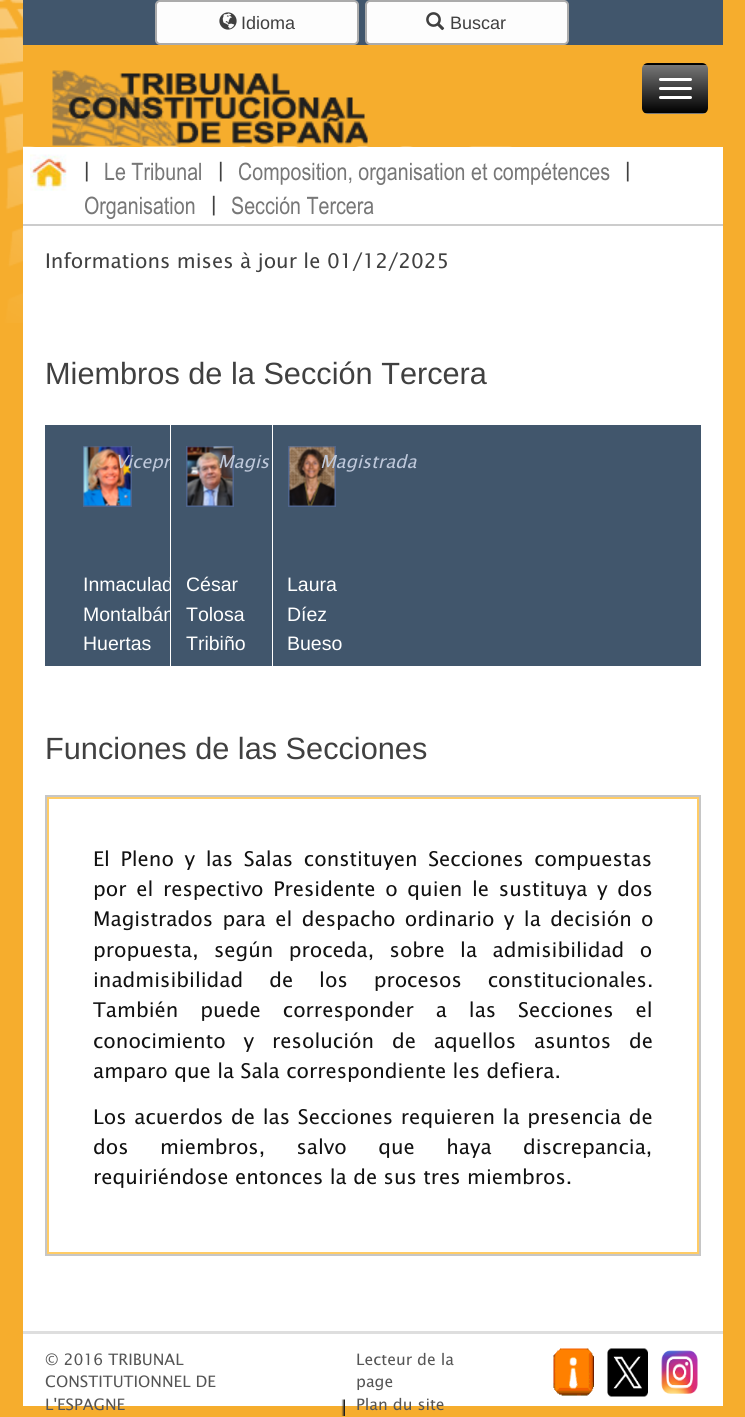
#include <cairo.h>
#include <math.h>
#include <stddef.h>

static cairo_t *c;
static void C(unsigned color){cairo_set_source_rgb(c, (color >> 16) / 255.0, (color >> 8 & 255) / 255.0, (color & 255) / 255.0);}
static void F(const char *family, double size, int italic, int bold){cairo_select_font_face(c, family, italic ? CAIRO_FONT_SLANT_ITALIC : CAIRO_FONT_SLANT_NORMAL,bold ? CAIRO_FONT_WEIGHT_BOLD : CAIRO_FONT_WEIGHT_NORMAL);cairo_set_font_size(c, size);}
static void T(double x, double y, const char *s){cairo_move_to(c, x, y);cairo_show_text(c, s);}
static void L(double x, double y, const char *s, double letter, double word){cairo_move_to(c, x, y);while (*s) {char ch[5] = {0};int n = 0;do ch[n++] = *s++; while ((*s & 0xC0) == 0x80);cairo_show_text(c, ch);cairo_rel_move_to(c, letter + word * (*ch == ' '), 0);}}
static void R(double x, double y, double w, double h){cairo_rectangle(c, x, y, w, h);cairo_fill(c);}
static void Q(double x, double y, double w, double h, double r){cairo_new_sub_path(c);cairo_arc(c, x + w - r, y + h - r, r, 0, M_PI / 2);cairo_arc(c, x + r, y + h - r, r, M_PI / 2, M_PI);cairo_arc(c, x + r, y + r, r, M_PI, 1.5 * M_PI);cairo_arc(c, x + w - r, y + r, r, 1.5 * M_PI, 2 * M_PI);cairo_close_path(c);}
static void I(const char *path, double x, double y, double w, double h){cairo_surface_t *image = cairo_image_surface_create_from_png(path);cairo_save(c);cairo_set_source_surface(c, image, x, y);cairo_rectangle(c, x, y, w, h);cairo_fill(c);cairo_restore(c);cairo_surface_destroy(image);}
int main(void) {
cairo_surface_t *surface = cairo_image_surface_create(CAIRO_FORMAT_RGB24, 745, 1417);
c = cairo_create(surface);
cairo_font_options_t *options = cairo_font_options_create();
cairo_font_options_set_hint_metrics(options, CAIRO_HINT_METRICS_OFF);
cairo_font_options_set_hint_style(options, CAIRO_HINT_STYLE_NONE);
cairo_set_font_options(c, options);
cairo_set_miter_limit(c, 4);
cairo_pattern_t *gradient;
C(0xf6ad2d);
cairo_paint(c);
I("1.png",0,0,512,323);
C(0xf6ad2d);
R(23,45,489,101);
C(0x41566c);
R(23,0,700,45);
C(0xfdfdfd);
Q(156,1,202,43,4);
cairo_fill_preserve(c);
C(0xababab);
cairo_stroke(c);
I("2.png",219,12,18,18);
F("Liberation Sans",18,0,0);
C(0x404040);
T(241,29,"Idioma");
C(0xfdfdfd);
Q(366,1,202,43,4);
cairo_fill_preserve(c);
C(0xababab);
cairo_stroke(c);
I("3.png",426,12,19,19);
C(0x404040);
T(450,29,"Buscar");
I("4.png",52,70,316,76);
cairo_save(c);
Q(642,63,66,51,6);
cairo_clip(c);
gradient = cairo_pattern_create_linear(675,16,675,65);
cairo_pattern_add_color_stop_rgba(gradient,0,0.467,0.467,0.467,1);
cairo_pattern_add_color_stop_rgba(gradient,1,0,0,0,1);
cairo_set_source(c,gradient);
cairo_pattern_destroy(gradient);
R(642,63,66,2);
gradient = cairo_pattern_create_linear(675,65,675,113);
cairo_pattern_add_color_stop_rgba(gradient,0,0.467,0.467,0.467,1);
cairo_pattern_add_color_stop_rgba(gradient,1,0,0,0,1);
cairo_set_source(c,gradient);
cairo_pattern_destroy(gradient);
R(642,65,66,48);
gradient = cairo_pattern_create_linear(675,113,675,161);
cairo_pattern_add_color_stop_rgba(gradient,0,0.467,0.467,0.467,1);
cairo_pattern_add_color_stop_rgba(gradient,1,0,0,0,1);
cairo_set_source(c,gradient);
cairo_pattern_destroy(gradient);
R(642,113,66,1);
cairo_restore(c);
C(0xffffff);
Q(659,78,33,3,1.5);
cairo_fill(c);
Q(659,87,33,3,1.5);
cairo_fill(c);
Q(659,96,33,3,1.5);
cairo_fill(c);
R(23,147,700,77);
I("5.png",30,154,37,37);
F("Liberation Sans",21,0,0);
C(0x404040);
T(84,177,"|");
F("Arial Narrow",24,0,0);
C(0x777777);
T(104,180,"Le Tribunal");
F("Liberation Sans",21,0,0);
C(0x404040);
T(218,177,"|");
F("Arial Narrow",24,0,0);
C(0x777777);
T(238,180,"Composition, organisation et compétences");
F("Liberation Sans",21,0,0);
C(0x404040);
T(625,177,"|");
F("Arial Narrow",24,0,0);
C(0x777777);
T(84,214,"Organisation");
F("Liberation Sans",21,0,0);
C(0x404040);
T(211,211,"|");
F("Arial Narrow",24,0,0);
C(0x777777);
T(231,214,"Sección Tercera");
C(0xffffff);
R(23,226,700,1180);
C(0xcccccc);
R(23,224,700,2);
F("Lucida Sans",20.25,0,0);
C(0x404040);
T(45,268,"Informations mises à jour le 01/12/2025");
F("Liberation Sans",30.7,0,0);
T(45,384,"Miembros de la Sección Tercera");
C(0x41566c);
R(45,425,656,241);
cairo_rectangle(c,84,447,47,59);
C(0x4f658e);
cairo_stroke(c);
I("6.png",83,446,48,60);
F("Lucida Sans",18,1,0);
C(0xbfc9db);
T(115,468,"Vicepr");
F("Liberation Sans",19.5,0,0);
C(0xffffff);
T(83,591,"Inmaculad");
T(83,621,"Montalbán");
T(83,650,"Huertas");
R(170,425,1,241);
C(0x41566c);
R(171,458,2,163);
cairo_rectangle(c,187,447,46,59);
C(0x4f658e);
cairo_stroke(c);
I("7.png",187,446,46,60);
F("Lucida Sans",18,1,0);
C(0xbfc9db);
T(218,468,"Magis");
F("Liberation Sans",19.5,0,0);
C(0xffffff);
T(186,591,"César");
T(186,621,"Tolosa");
T(186,650,"Tribiño");
R(272,425,1,241);
cairo_rectangle(c,289,447,46,59);
C(0x4f658e);
cairo_stroke(c);
I("8.png",289,446,46,60);
F("Lucida Sans",18,1,0);
C(0xbfc9db);
T(320,468,"Magistrada");
F("Liberation Sans",19.5,0,0);
C(0xffffff);
T(287,591,"Laura");
T(287,621,"Díez");
T(287,650,"Bueso");
F("Liberation Sans",30.7,0,0);
C(0x404040);
T(45,759,"Funciones de las Secciones");
cairo_rectangle(c,46,796,654,459);
C(0xc6c6c6);
cairo_stroke(c);
cairo_rectangle(c,48,798,650,455);
C(0xffcc66);
cairo_stroke(c);
F("Lucida Sans",20.25,0,0);
C(0x111111);
L(93,866,"El Pleno y las Salas constituyen Secciones compuestas",0,4.25);
L(93,896,"por el respectivo Presidente o quien le sustituya y dos",0,3.25);
L(93,926,"Magistrados para el despacho ordinario y la decisión o",0,3);
L(93,957,"propuesta, según proceda, sobre la admisibilidad o",0,9);
L(93,987,"inadmisibilidad de los procesos constitucionales.",0,19.5);
L(93,1017,"También puede corresponder a las Secciones el",0,15.5);
L(93,1048,"conocimiento y resolución de aquellos asuntos de",0,11.5);
T(93,1078,"amparo que la Sala correspondiente les defiera.");
L(93,1124,"Los acuerdos de las Secciones requieren la presencia de",0,1.25);
L(93,1154,"dos miembros, salvo que haya discrepancia,",0,25);
T(93,1184,"requiriéndose entonces la de sus tres miembros.");
C(0xdedede);
R(23,1331,700,3);
F("Lucida Sans",15.75,0,0);
C(0x555555);
T(45,1365,"© 2016 TRIBUNAL");
T(45,1387,"CONSTITUTIONNEL DE");
T(45,1410,"L'ESPAGNE");
T(356,1365,"Lecteur de la");
T(356,1387,"page");
I("9.png",341,1399,4,17);
T(356,1410,"Plan du site");
I("10.png",553,1348,41,48);
I("11.png",607,1348,41,49);
I("12.png",661,1350,37,44);
cairo_surface_write_to_png(surface, "o.png");
cairo_font_options_destroy(options);
cairo_destroy(c);
cairo_surface_destroy(surface);
return 0;
}
